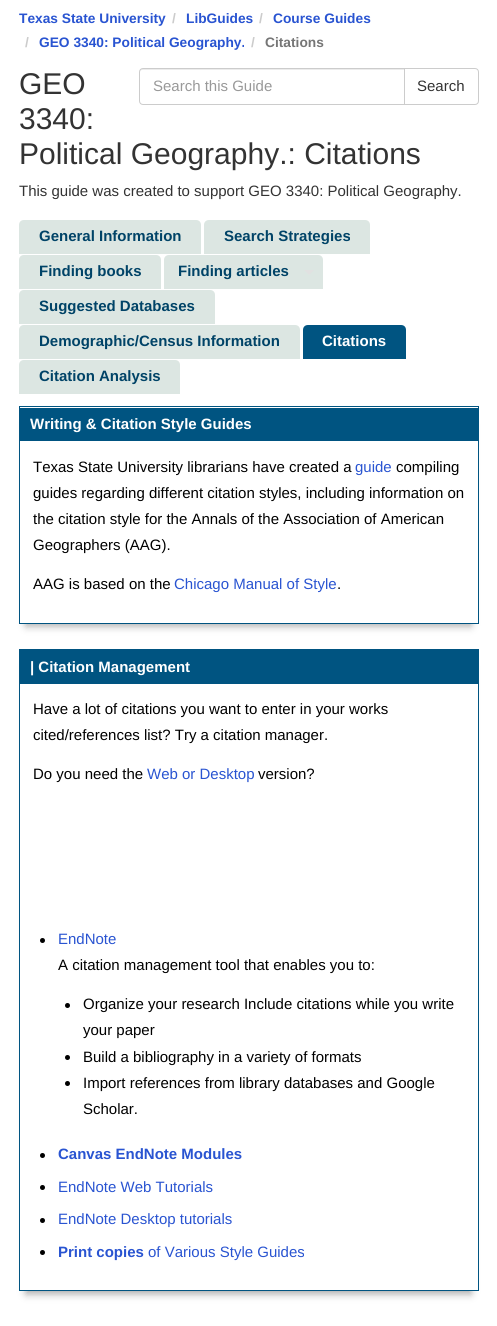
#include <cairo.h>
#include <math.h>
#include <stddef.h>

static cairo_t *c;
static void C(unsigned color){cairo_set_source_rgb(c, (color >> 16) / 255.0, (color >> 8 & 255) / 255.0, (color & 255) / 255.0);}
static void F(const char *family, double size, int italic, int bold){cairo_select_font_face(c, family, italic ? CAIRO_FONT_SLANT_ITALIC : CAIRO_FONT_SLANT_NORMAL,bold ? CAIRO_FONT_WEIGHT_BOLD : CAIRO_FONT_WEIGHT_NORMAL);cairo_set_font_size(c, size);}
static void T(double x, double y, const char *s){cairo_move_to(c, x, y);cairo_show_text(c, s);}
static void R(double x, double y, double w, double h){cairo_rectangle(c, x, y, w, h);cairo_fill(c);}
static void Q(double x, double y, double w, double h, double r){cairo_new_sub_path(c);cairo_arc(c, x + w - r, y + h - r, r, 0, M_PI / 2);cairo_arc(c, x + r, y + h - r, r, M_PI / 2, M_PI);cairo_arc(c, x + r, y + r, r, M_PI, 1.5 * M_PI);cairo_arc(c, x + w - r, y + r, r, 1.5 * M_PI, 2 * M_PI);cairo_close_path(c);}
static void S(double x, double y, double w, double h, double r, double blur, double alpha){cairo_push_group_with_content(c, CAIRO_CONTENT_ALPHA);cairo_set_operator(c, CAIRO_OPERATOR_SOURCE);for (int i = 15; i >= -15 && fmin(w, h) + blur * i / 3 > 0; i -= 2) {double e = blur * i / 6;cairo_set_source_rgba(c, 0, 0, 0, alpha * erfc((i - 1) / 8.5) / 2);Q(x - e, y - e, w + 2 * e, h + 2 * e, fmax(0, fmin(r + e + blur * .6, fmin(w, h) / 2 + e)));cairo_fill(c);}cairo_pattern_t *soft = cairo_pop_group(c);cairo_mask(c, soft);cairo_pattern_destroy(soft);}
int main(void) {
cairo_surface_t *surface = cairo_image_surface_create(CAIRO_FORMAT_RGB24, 497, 1326);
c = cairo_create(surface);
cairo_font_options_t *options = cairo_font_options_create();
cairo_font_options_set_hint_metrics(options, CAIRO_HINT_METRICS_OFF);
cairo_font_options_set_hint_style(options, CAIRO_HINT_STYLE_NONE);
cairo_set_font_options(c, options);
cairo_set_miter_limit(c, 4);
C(0xffffff);
cairo_paint(c);
F("Liberation Sans",13.75,0,1);
C(0x2954d1);
T(19,23,"Texas State University");
C(0xcccccc);
T(172,23,"/");
C(0x2954d1);
T(186,23,"LibGuides");
C(0xcccccc);
T(259,23,"/");
C(0x2954d1);
T(273,23,"Course Guides");
C(0xcccccc);
T(25,47,"/");
C(0x2954d1);
T(39,47,"GEO 3340: Political Geography.");
C(0xcccccc);
T(251,47,"/");
C(0x767676);
T(265,47,"Citations");
F("Liberation Sans",30,0,0);
C(0x333333);
T(19,94,"GEO");
T(19,129,"3340:");
T(19,164,"Political Geography.: Citations");
F("Liberation Sans",15,0,0);
T(19,196,"This guide was created to support GEO 3340: Political Geography.");
C(0xececec);
cairo_new_path(c);
cairo_move_to(c,142,70);
cairo_line_to(c,404,70);
cairo_line_to(c,404,69);
cairo_line_to(c,142,69);
cairo_curve_to(c,141,69,140,70,140,72);
cairo_curve_to(c,140,71,141,70,142,70);
cairo_close_path(c);
cairo_fill(c);
cairo_new_path(c);
cairo_move_to(c,143,68.5);
cairo_line_to(c,404.5,68.5);
cairo_line_to(c,404.5,104.5);
cairo_line_to(c,143,104.5);
cairo_curve_to(c,141,104.5,139.5,103,139.5,101);
cairo_line_to(c,139.5,72);
cairo_curve_to(c,139.5,70,141,68.5,143,68.5);
cairo_close_path(c);
C(0xcccccc);
cairo_set_line_width(c,1);
cairo_stroke(c);
C(0x999999);
T(153,91,"Search this Guide");
C(0xffffff);
cairo_new_path(c);
cairo_move_to(c,404.5,68.5);
cairo_line_to(c,475,68.5);
cairo_curve_to(c,477,68.5,478.5,70,478.5,72);
cairo_line_to(c,478.5,101);
cairo_curve_to(c,478.5,103,477,104.5,475,104.5);
cairo_line_to(c,404.5,104.5);
cairo_close_path(c);
cairo_fill_preserve(c);
C(0xcccccc);
cairo_stroke(c);
C(0x333333);
T(417,91,"Search");
C(0xdce6e2);
cairo_new_path(c);
cairo_move_to(c,24,220);
cairo_line_to(c,196,220);
cairo_curve_to(c,199,220,201,222,201,225);
cairo_line_to(c,201,254);
cairo_line_to(c,19,254);
cairo_line_to(c,19,225);
cairo_curve_to(c,19,222,21,220,24,220);
cairo_close_path(c);
cairo_fill(c);
F("Liberation Sans",15,0,1);
C(0x004367);
T(39,241,"General Information");
C(0xdce6e2);
cairo_new_path(c);
cairo_move_to(c,209,220);
cairo_line_to(c,365,220);
cairo_curve_to(c,368,220,370,222,370,225);
cairo_line_to(c,370,254);
cairo_line_to(c,204,254);
cairo_line_to(c,204,225);
cairo_curve_to(c,204,222,206,220,209,220);
cairo_close_path(c);
cairo_fill(c);
C(0x004367);
T(224,241,"Search Strategies");
C(0xdce6e2);
cairo_new_path(c);
cairo_move_to(c,24,255);
cairo_line_to(c,156,255);
cairo_curve_to(c,159,255,161,257,161,260);
cairo_line_to(c,161,289);
cairo_line_to(c,19,289);
cairo_line_to(c,19,260);
cairo_curve_to(c,19,257,21,255,24,255);
cairo_close_path(c);
cairo_fill(c);
C(0x004367);
T(39,276,"Finding books");
C(0xdce6e2);
cairo_new_path(c);
cairo_move_to(c,169,255);
cairo_line_to(c,296,255);
cairo_line_to(c,296,289);
cairo_line_to(c,164,289);
cairo_line_to(c,164,260);
cairo_curve_to(c,164,257,166,255,169,255);
cairo_close_path(c);
cairo_fill(c);
C(0x004367);
T(178,276,"Finding articles");
C(0xdce6e2);
cairo_new_path(c);
cairo_move_to(c,296,255);
cairo_line_to(c,318,255);
cairo_curve_to(c,321,255,323,257,323,260);
cairo_line_to(c,323,289);
cairo_line_to(c,296,289);
cairo_close_path(c);
cairo_fill(c);
C(0xe1e1e1);
cairo_new_path(c);
cairo_move_to(c,304,270);
cairo_line_to(c,314,270);
cairo_line_to(c,309,275);
cairo_close_path(c);
cairo_fill(c);
C(0xdce6e2);
cairo_new_path(c);
cairo_move_to(c,24,290);
cairo_line_to(c,210,290);
cairo_curve_to(c,213,290,215,292,215,295);
cairo_line_to(c,215,324);
cairo_line_to(c,19,324);
cairo_line_to(c,19,295);
cairo_curve_to(c,19,292,21,290,24,290);
cairo_close_path(c);
cairo_fill(c);
C(0x004367);
T(39,311,"Suggested Databases");
C(0xdce6e2);
cairo_new_path(c);
cairo_move_to(c,24,325);
cairo_line_to(c,295,325);
cairo_curve_to(c,298,325,300,327,300,330);
cairo_line_to(c,300,359);
cairo_line_to(c,19,359);
cairo_line_to(c,19,330);
cairo_curve_to(c,19,327,21,325,24,325);
cairo_close_path(c);
cairo_fill(c);
C(0x004367);
T(39,346,"Demographic/Census Information");
C(0x005481);
cairo_new_path(c);
cairo_move_to(c,308,325);
cairo_line_to(c,401,325);
cairo_curve_to(c,404,325,406,327,406,330);
cairo_line_to(c,406,359);
cairo_line_to(c,303,359);
cairo_line_to(c,303,330);
cairo_curve_to(c,303,327,305,325,308,325);
cairo_close_path(c);
cairo_fill(c);
C(0xffffff);
T(322,346,"Citations");
C(0xdce6e2);
cairo_new_path(c);
cairo_move_to(c,24,360);
cairo_line_to(c,175,360);
cairo_curve_to(c,178,360,180,362,180,365);
cairo_line_to(c,180,394);
cairo_line_to(c,19,394);
cairo_line_to(c,19,365);
cairo_curve_to(c,19,362,21,360,24,360);
cairo_close_path(c);
cairo_fill(c);
C(0x004367);
T(39,381,"Citation Analysis");
C(0xaaaaaa);
S(26,424,445,202,0,4,1);
C(0xffffff);
R(20,416,458,207);
cairo_rectangle(c,19.5,406.5,459,217);
C(0x005481);
cairo_stroke(c);
R(20,408,458,33);
C(0xffffff);
T(30,429,"Writing & Citation Style Guides");
F("Liberation Sans",15,0,0);
C(0x000000);
T(33,472,"Texas State University librarians have created a");
C(0x2954d1);
T(355,472,"guide");
C(0x000000);
T(396,472,"compiling");
T(33,498,"guides regarding different citation styles, including information on");
T(33,524,"the citation style for the Annals of the Association of American");
T(33,550,"Geographers (AAG).");
T(33,589,"AAG is based on the");
C(0x2954d1);
T(174,589,"Chicago Manual of Style");
C(0x000000);
T(337,589,".");
cairo_save(c);
cairo_set_fill_rule(c,CAIRO_FILL_RULE_EVEN_ODD);
cairo_new_path(c);
cairo_move_to(c,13,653);
cairo_line_to(c,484,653);
cairo_line_to(c,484,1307);
cairo_line_to(c,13,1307);
cairo_close_path(c);
cairo_move_to(c,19,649);
cairo_line_to(c,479,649);
cairo_line_to(c,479,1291);
cairo_line_to(c,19,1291);
cairo_close_path(c);
cairo_clip(c);
C(0xaaaaaa);
S(26,666,445,628,0,4,1);
cairo_restore(c);
cairo_rectangle(c,19.5,649.5,459,641);
C(0x005481);
cairo_stroke(c);
R(20,650,458,34);
F("Liberation Sans",15,0,1);
C(0xffffff);
T(30,672,"| Citation Management");
F("Liberation Sans",15,0,0);
C(0x000000);
T(33,714,"Have a lot of citations you want to enter in your works");
T(33,740,"cited/references list? Try a citation manager.");
T(33,779,"Do you need the");
C(0x2954d1);
T(147,779,"Web or Desktop");
C(0x000000);
T(258,779,"version?");
cairo_new_path(c);
cairo_arc(c,42.5,940.5,2.5,0,2 * M_PI);
cairo_fill(c);
C(0x2954d1);
T(58,944,"EndNote");
C(0x000000);
T(58,970,"A citation management tool that enables you to:");
cairo_new_path(c);
cairo_arc(c,67.5,1005.5,2.5,0,2 * M_PI);
cairo_fill(c);
T(83,1009,"Organize your research Include citations while you write");
T(83,1035,"your paper");
cairo_new_path(c);
cairo_arc(c,67.5,1057.5,2.5,0,2 * M_PI);
cairo_fill(c);
T(83,1062,"Build a bibliography in a variety of formats");
cairo_new_path(c);
cairo_arc(c,67.5,1083.5,2.5,0,2 * M_PI);
cairo_fill(c);
T(83,1088,"Import references from library databases and Google");
T(83,1114,"Scholar.");
cairo_new_path(c);
cairo_arc(c,42.5,1155.5,2.5,0,2 * M_PI);
cairo_fill(c);
F("Liberation Sans",15,0,1);
C(0x2954d1);
T(58,1159,"Canvas EndNote Modules");
C(0x000000);
cairo_new_path(c);
cairo_arc(c,42.5,1187.5,2.5,0,2 * M_PI);
cairo_fill(c);
F("Liberation Sans",15,0,0);
C(0x2954d1);
T(58,1192,"EndNote Web Tutorials");
C(0x000000);
cairo_new_path(c);
cairo_arc(c,42.5,1220.5,2.5,0,2 * M_PI);
cairo_fill(c);
C(0x2954d1);
T(58,1224,"EndNote Desktop tutorials");
C(0x000000);
cairo_new_path(c);
cairo_arc(c,42.5,1252.5,2.5,0,2 * M_PI);
cairo_fill(c);
F("Liberation Sans",15,0,1);
C(0x2954d1);
T(58,1257,"Print copies");
F("Liberation Sans",15,0,0);
T(148,1257,"of Various Style Guides");
cairo_surface_write_to_png(surface, "o.png");
cairo_font_options_destroy(options);
cairo_destroy(c);
cairo_surface_destroy(surface);
return 0;
}
